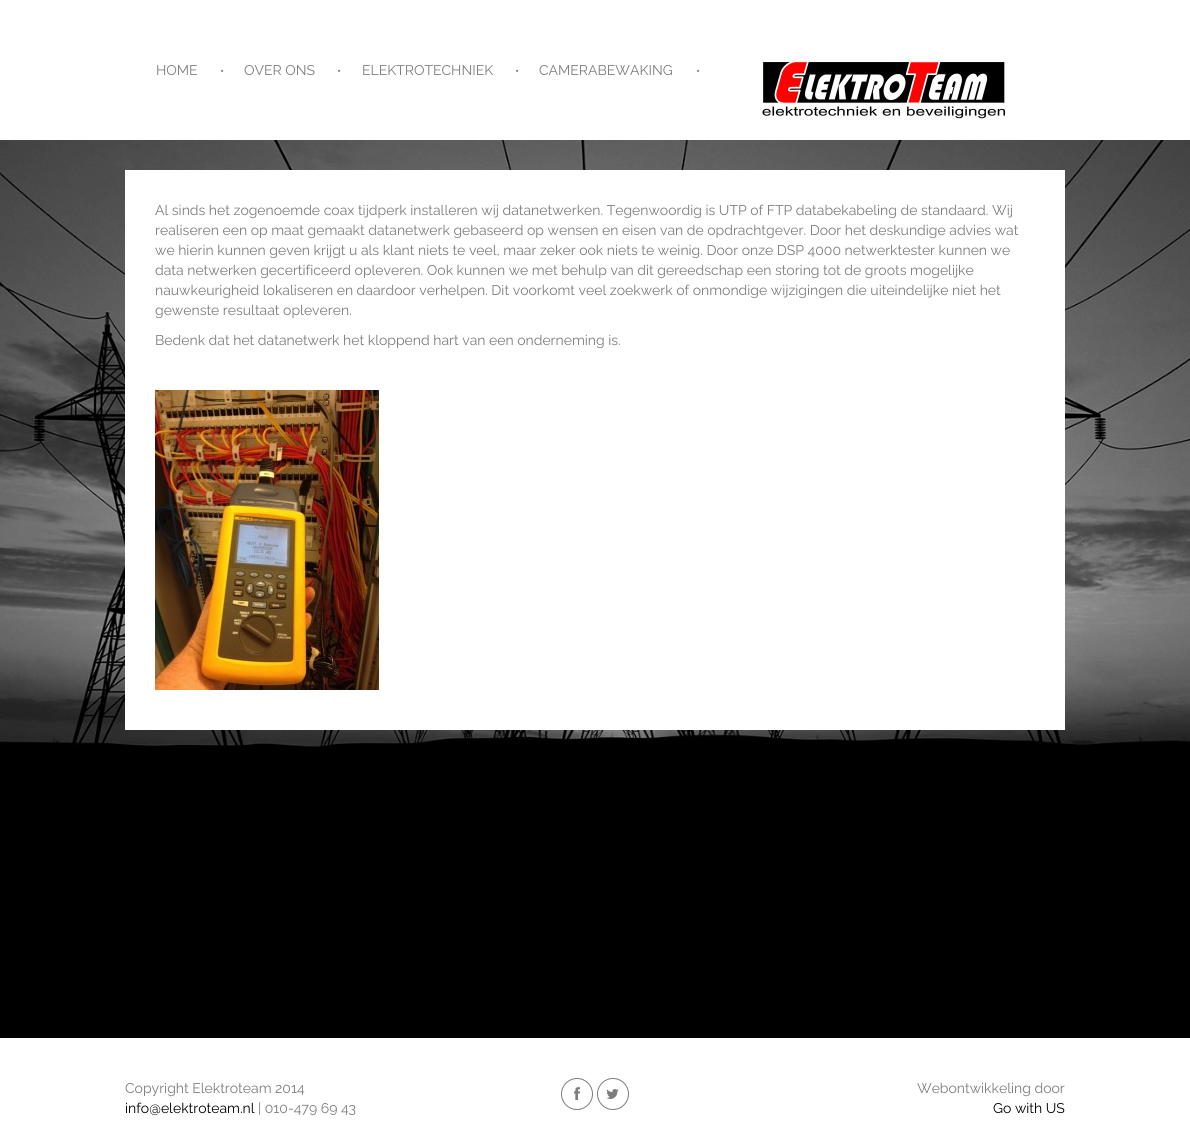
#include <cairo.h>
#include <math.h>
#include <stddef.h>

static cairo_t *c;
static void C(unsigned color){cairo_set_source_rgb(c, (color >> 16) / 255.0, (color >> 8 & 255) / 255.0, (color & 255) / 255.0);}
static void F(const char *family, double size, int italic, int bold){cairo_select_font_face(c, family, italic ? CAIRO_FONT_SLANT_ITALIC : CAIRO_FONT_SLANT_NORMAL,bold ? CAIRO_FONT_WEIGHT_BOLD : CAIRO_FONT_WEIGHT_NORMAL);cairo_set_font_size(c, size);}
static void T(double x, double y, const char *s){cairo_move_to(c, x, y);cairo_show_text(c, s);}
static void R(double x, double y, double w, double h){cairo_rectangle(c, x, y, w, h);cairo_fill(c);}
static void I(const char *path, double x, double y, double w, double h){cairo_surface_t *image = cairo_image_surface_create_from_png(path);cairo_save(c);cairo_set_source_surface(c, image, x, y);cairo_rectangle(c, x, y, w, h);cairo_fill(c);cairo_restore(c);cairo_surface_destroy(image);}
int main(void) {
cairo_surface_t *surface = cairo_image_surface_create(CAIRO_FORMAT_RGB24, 1190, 1138);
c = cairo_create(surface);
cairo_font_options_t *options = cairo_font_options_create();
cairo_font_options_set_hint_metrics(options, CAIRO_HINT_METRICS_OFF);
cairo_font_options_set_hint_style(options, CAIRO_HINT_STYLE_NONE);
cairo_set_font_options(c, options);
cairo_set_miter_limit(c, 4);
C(0x000000);
cairo_paint(c);
C(0xffffff);
R(0,0,1190,140);
F("Raleway Thin",14,0,0);
C(0x7d7d7d);
T(156,75,"HOME");
F("Raleway Thin",12,0,0);
T(220,75,"•");
F("Raleway Thin",14,0,0);
T(244,75,"OVER ONS");
F("Raleway Thin",12,0,0);
T(337,75,"•");
F("Raleway Thin",14,0,0);
T(362,75,"ELEKTROTECHNIEK");
F("Raleway Thin",12,0,0);
T(515,75,"•");
F("Raleway Thin",14,0,0);
T(539,75,"CAMERABEWAKING");
F("Raleway Thin",12,0,0);
T(696,75,"•");
I("1.png",762,60,244,60);
I("2.png",0,140,1190,607);
C(0xffffff);
R(125,170,940,560);
F("Raleway Thin",14,0,0);
C(0x7d7d7d);
T(155,215,"Al sinds het zogenoemde coax tijdperk installeren wij datanetwerken. Tegenwoordig is UTP of FTP databekabeling de standaard. Wij");
T(155,235,"realiseren een op maat gemaakt datanetwerk gebaseerd op wensen en eisen van de opdrachtgever. Door het deskundige advies wat");
T(155,255,"we hierin kunnen geven krijgt u als klant niets te veel, maar zeker ook niets te weinig. Door onze DSP 4000 netwerktester kunnen we");
T(155,275,"data netwerken gecertificeerd opleveren. Ook kunnen we met behulp van dit gereedschap een storing tot de groots mogelijke");
T(155,295,"nauwkeurigheid lokaliseren en daardoor verhelpen. Dit voorkomt veel zoekwerk of onmondige wijzigingen die uiteindelijke niet het");
T(155,315,"gewenste resultaat opleveren.");
T(155,345,"Bedenk dat het datanetwerk het kloppend hart van een onderneming is.");
I("3.png",155,390,224,300);
C(0xffffff);
R(0,1038,1190,100);
C(0x7d7d7d);
T(125,1093,"Copyright Elektroteam 2014");
C(0x000000);
T(125,1113,"info@elektroteam.nl");
C(0x7d7d7d);
T(258,1113,"| 010-479 69 43");
cairo_new_path(c);
cairo_arc(c,577,1094,15.5,0,2 * M_PI);
cairo_set_line_width(c,1);
cairo_stroke(c);
I("4.png",574,1087,6,13);
cairo_arc(c,613,1094,15.5,0,2 * M_PI);
cairo_stroke(c);
I("5.png",606,1089,13,10);
T(917,1093,"Webontwikkeling door");
C(0x000000);
T(993,1113,"Go with US");
cairo_surface_write_to_png(surface, "o.png");
cairo_font_options_destroy(options);
cairo_destroy(c);
cairo_surface_destroy(surface);
return 0;
}
